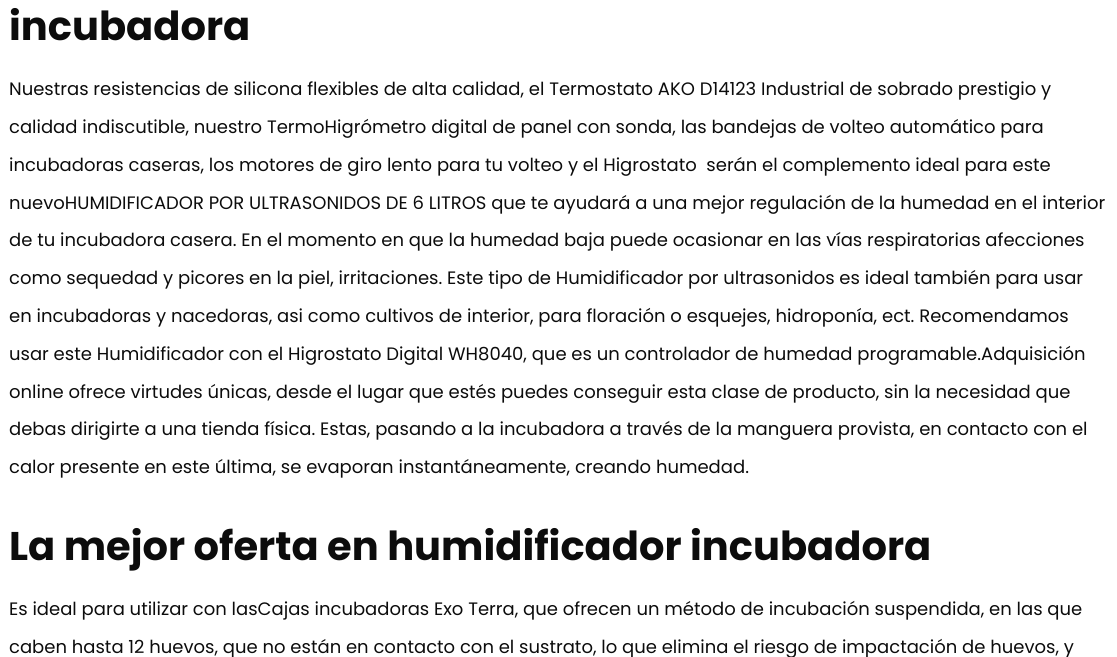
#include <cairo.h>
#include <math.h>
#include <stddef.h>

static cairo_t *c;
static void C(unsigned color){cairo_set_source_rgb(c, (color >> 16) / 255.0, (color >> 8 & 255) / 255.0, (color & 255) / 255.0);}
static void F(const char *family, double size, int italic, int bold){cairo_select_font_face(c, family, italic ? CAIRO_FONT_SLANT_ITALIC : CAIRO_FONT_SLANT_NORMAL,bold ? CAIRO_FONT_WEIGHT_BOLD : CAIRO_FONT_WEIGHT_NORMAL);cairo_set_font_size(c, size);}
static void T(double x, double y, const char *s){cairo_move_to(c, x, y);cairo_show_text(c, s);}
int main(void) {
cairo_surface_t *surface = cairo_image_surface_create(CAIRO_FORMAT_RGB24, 1117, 657);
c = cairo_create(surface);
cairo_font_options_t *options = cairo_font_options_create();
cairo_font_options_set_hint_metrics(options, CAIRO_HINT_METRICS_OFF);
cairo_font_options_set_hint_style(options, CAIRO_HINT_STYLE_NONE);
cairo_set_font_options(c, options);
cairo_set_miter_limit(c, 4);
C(0xffffff);
cairo_paint(c);
F("Poppins",40,0,1);
C(0x0c0c0c);
T(9,40,"incubadora");
F("Poppins",18,0,0);
T(9,95,"Nuestras resistencias de silicona flexibles de alta calidad, el Termostato AKO D14123 Industrial de sobrado prestigio y");
T(9,133,"calidad indiscutible, nuestro TermoHigrómetro digital de panel con sonda, las bandejas de volteo automático para");
T(9,171,"incubadoras caseras, los motores de giro lento para tu volteo y el Higrostato  serán el complemento ideal para este");
T(9,209,"nuevoHUMIDIFICADOR POR ULTRASONIDOS DE 6 LITROS que te ayudará a una mejor regulación de la humedad en el interior");
T(9,246,"de tu incubadora casera. En el momento en que la humedad baja puede ocasionar en las vías respiratorias afecciones");
T(9,284,"como sequedad y picores en la piel, irritaciones. Este tipo de Humidificador por ultrasonidos es ideal también para usar");
T(9,322,"en incubadoras y nacedoras, asi como cultivos de interior, para floración o esquejes, hidroponía, ect. Recomendamos");
T(9,360,"usar este Humidificador con el Higrostato Digital WH8040, que es un controlador de humedad programable.Adquisición");
T(9,398,"online ofrece virtudes únicas, desde el lugar que estés puedes conseguir esta clase de producto, sin la necesidad que");
T(9,435,"debas dirigirte a una tienda física. Estas, pasando a la incubadora a través de la manguera provista, en contacto con el");
T(9,473,"calor presente en este última, se evaporan instantáneamente, creando humedad.");
F("Poppins",40,0,1);
T(9,560,"La mejor oferta en humidificador incubadora");
F("Poppins",18,0,0);
T(9,615,"Es ideal para utilizar con lasCajas incubadoras Exo Terra, que ofrecen un método de incubación suspendida, en las que");
T(9,653,"caben hasta 12 huevos, que no están en contacto con el sustrato, lo que elimina el riesgo de impactación de huevos, y");
cairo_surface_write_to_png(surface, "o.png");
cairo_font_options_destroy(options);
cairo_destroy(c);
cairo_surface_destroy(surface);
return 0;
}
